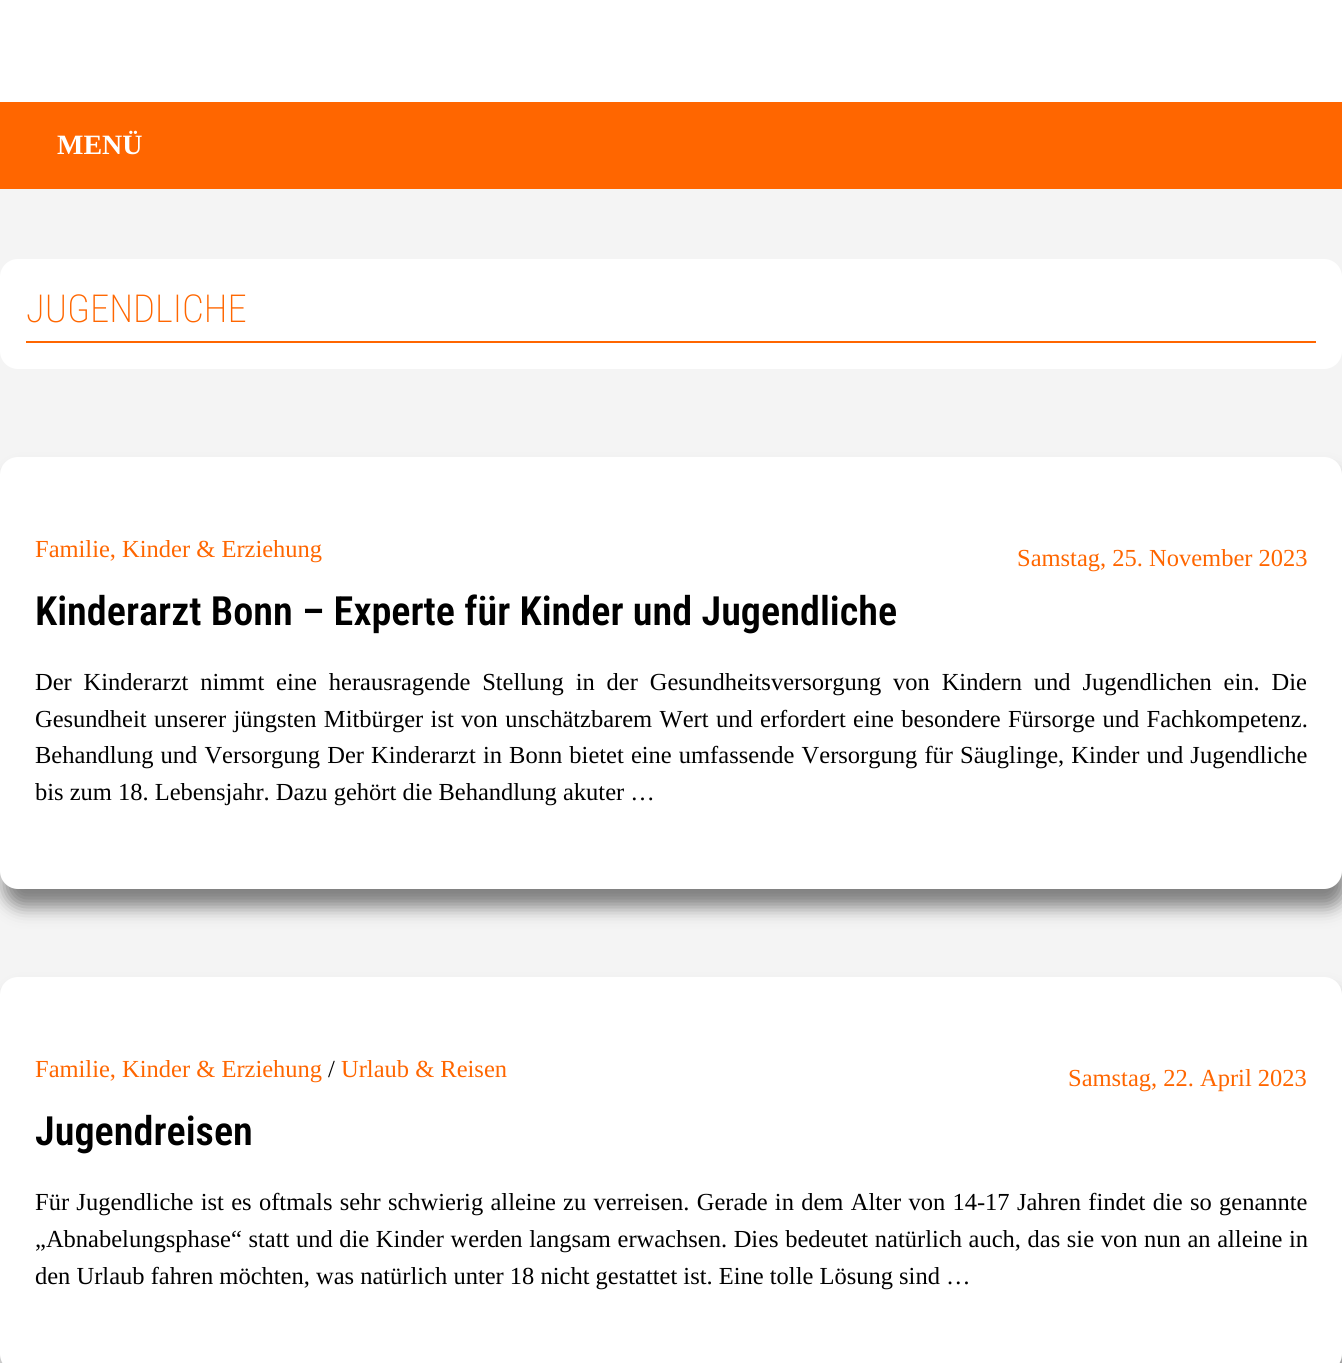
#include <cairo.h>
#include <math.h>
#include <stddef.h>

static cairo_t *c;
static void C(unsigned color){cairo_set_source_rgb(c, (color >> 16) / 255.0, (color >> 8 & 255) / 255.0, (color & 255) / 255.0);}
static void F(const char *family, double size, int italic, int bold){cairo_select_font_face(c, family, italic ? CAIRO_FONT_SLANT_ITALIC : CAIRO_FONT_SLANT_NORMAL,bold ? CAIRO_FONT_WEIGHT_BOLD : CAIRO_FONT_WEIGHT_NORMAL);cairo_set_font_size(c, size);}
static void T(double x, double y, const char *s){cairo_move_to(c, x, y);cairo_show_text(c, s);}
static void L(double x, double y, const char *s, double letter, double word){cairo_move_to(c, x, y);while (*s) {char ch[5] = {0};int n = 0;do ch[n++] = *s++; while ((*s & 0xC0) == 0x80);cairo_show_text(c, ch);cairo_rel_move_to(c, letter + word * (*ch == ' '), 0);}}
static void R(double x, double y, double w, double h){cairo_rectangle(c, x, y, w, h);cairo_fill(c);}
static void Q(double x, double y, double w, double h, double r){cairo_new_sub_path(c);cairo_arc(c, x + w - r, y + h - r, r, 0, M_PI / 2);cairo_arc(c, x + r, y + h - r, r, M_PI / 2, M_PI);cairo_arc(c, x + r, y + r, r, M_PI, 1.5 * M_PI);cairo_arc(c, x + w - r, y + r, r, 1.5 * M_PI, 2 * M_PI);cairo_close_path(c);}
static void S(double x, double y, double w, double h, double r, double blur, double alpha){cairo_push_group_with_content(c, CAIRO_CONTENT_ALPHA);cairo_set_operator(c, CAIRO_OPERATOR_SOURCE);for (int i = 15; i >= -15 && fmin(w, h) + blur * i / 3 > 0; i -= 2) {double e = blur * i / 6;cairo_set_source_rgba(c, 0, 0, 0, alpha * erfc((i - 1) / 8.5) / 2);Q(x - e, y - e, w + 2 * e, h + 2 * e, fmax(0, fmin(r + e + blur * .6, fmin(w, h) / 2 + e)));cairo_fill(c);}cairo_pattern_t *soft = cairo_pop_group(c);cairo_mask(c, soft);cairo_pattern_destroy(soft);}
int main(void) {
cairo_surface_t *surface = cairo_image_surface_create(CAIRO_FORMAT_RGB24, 1342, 1363);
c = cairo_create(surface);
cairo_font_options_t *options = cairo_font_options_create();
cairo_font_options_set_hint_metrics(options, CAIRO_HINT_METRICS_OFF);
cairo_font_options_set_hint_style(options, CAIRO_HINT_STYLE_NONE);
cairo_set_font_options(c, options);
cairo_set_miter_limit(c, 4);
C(0xf4f4f4);
cairo_paint(c);
C(0xffffff);
R(0,0,1342,102);
C(0xff6600);
R(0,102,1342,87);
F("Liberation Serif",28,0,1);
C(0xffffff);
T(57,154,"MENÜ");
Q(0,259,1342,110,18);
cairo_fill(c);
C(0xff6600);
R(26,341,1290,2);
F("Roboto Condensed ExtraLight",38.5,0,0);
T(26,322,"JUGENDLICHE");
C(0x808080);
S(4,474,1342,433,18,9,1);
C(0xffffff);
Q(0,457,1342,432,18);
cairo_fill(c);
F("Liberation Serif",24.5,0,0);
C(0xff6600);
T(35,557,"Familie, Kinder & Erziehung");
T(1017,566,"Samstag, 25. November 2023");
F("Roboto Condensed SemiBold",40.25,0,0);
C(0x000000);
T(35,625,"Kinderarzt Bonn – Experte für Kinder und Jugendliche");
F("Liberation Serif",24.5,0,0);
L(35,690,"Der Kinderarzt nimmt eine herausragende Stellung in der Gesundheitsversorgung von Kindern und Jugendlichen ein. Die",0,5.75);
L(35,727,"Gesundheit unserer jüngsten Mitbürger ist von unschätzbarem Wert und erfordert eine besondere Fürsorge und Fachkompetenz.",0,1.25);
L(35,763,"Behandlung und Versorgung Der Kinderarzt in Bonn bietet eine umfassende Versorgung für Säuglinge, Kinder und Jugendliche",0,1);
T(35,800,"bis zum 18. Lebensjahr. Dazu gehört die Behandlung akuter …");
C(0x808080);
S(4,994,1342,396,18,9,1);
C(0xffffff);
Q(0,977,1342,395,18);
cairo_fill(c);
C(0xff6600);
T(35,1077,"Familie, Kinder & Erziehung");
C(0x000000);
T(328,1077,"/");
C(0xff6600);
T(341,1077,"Urlaub & Reisen");
T(1068,1086,"Samstag, 22. April 2023");
F("Roboto Condensed SemiBold",40.25,0,0);
C(0x000000);
T(35,1145,"Jugendreisen");
F("Liberation Serif",24.5,0,0);
L(35,1210,"Für Jugendliche ist es oftmals sehr schwierig alleine zu verreisen. Gerade in dem Alter von 14-17 Jahren findet die so genannte",0,1.2);
L(35,1247,"„Abnabelungsphase“ statt und die Kinder werden langsam erwachsen. Dies bedeutet natürlich auch, das sie von nun an alleine in",0,.5);
T(35,1284,"den Urlaub fahren möchten, was natürlich unter 18 nicht gestattet ist. Eine tolle Lösung sind …");
cairo_surface_write_to_png(surface, "o.png");
cairo_font_options_destroy(options);
cairo_destroy(c);
cairo_surface_destroy(surface);
return 0;
}
